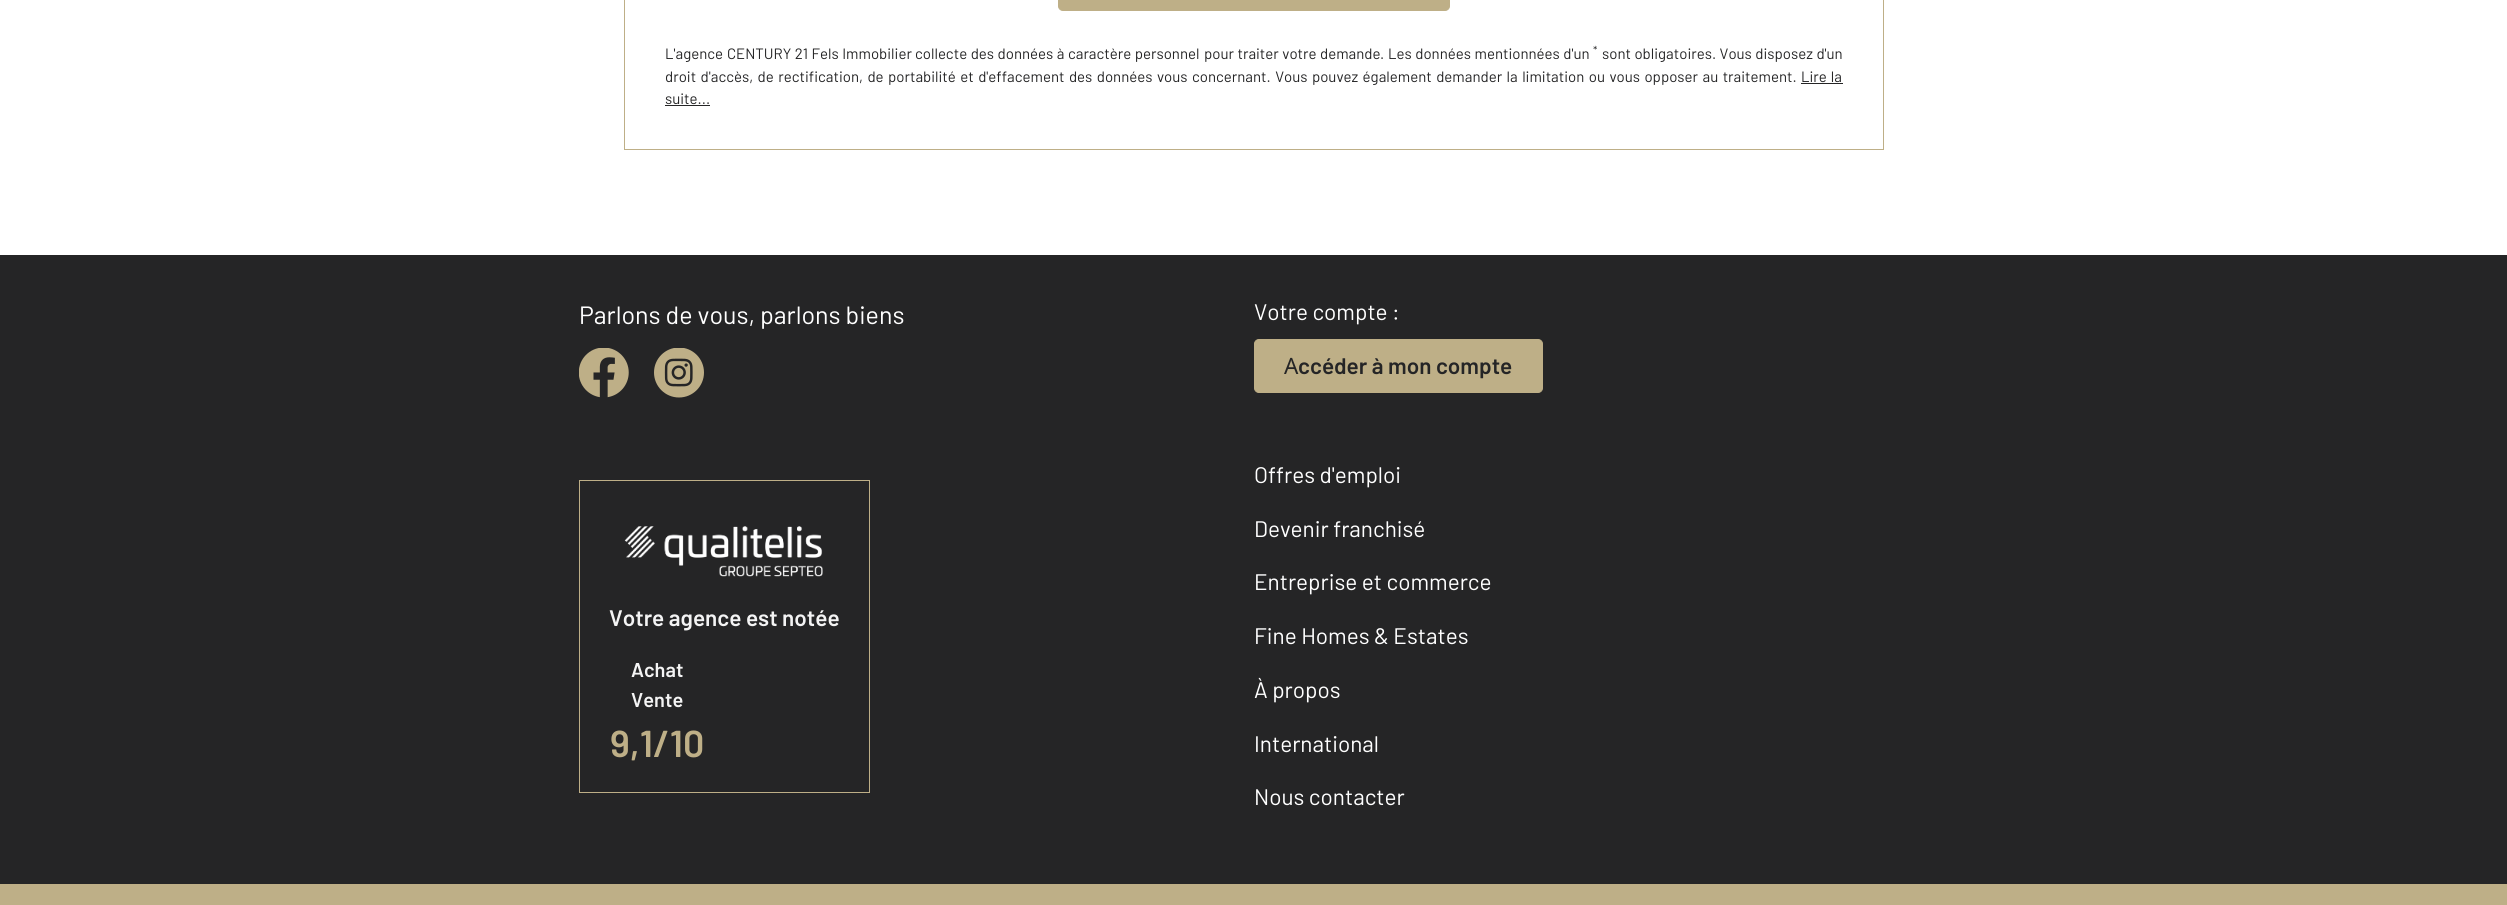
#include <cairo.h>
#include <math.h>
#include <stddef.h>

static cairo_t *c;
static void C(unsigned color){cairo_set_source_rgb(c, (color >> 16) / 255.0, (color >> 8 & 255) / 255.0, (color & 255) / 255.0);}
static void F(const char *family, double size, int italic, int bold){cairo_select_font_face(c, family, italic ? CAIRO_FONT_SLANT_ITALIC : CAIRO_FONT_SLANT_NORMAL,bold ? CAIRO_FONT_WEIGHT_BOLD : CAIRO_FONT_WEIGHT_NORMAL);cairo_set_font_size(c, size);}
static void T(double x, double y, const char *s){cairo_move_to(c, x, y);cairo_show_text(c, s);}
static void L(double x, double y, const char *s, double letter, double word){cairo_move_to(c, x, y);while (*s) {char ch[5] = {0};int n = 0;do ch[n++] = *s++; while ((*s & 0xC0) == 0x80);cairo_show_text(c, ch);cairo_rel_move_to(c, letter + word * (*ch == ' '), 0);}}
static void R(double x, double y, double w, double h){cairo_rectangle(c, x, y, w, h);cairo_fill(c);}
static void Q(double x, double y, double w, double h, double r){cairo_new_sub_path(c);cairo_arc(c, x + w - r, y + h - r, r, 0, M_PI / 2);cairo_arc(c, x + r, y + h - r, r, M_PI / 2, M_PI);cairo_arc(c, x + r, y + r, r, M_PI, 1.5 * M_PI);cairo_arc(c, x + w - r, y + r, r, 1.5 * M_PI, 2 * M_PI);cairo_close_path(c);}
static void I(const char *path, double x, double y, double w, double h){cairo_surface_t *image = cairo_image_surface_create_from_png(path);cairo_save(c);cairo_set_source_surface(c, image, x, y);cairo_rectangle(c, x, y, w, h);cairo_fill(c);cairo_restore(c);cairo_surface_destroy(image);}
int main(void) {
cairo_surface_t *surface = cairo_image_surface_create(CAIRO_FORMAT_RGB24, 2507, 905);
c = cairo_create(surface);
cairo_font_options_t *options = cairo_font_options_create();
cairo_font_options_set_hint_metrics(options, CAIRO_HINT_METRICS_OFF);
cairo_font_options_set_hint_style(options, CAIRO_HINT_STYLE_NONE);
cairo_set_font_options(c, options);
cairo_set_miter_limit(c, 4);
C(0xffffff);
cairo_paint(c);
cairo_rectangle(c,624.5,-.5,1259,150);
C(0xbeaf87);
cairo_set_line_width(c,1);
cairo_stroke(c);
Q(1058.5,-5.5,391,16,4.5);
cairo_fill_preserve(c);
cairo_stroke(c);
F("Barlow",11,0,0);
C(0x252526);
T(1593,54,"*");
F("Barlow",15,0,0);
T(665,59,"L'agence");
L(727,59,"CENTURY 21 Fels Immobilier",0,.5);
L(915,59,"collecte des données à caractère personnel",0,.5);
L(1204,59,"pour traiter votre demande",0,.5);
T(1380,59,".");
L(1388,59,"Les données mentionnées d'un",0,.5);
L(1602,59,"sont obligatoires. Vous disposez d'un",0,.5);
L(665,82,"droit d'accès, de rectification, de portabilité et d'effacement des données vous concernant. Vous pouvez également demander la limitation ou vous opposer au traitement.",0,1.45);
L(1801,82,"Lire la",0,1);
R(1801,83,42,1);
T(665,104,"suite...");
R(665,105,45,1);
R(0,255,2507,629);
F("Barlow",25,0,0);
C(0xffffff);
T(579,324,"Parlons de vous, parlons biens");
I("1.png",579,348,50,50);
I("2.png",654,348,50,50);
F("Barlow",22.5,0,0);
T(1254,320,"Votre compte :");
C(0xbeaf87);
Q(1254.5,339.5,288,53,4.5);
cairo_fill_preserve(c);
cairo_stroke(c);
F("Noto Sans",22.5,0,0);
C(0x252526);
T(1284,374,"A");
F("Barlow SemiBold",22.5,0,0);
T(1298,374,"ccéder à mon compte");
cairo_rectangle(c,579.5,480.5,290,312);
C(0xbeaf87);
cairo_stroke(c);
I("3.png",624,526,199,51);
C(0xf4f4f4);
T(609,626,"Votre agence est notée");
F("Barlow SemiBold",20,0,0);
T(631,677,"Achat");
T(631,707,"Vente");
F("Barlow SemiBold",37.5,0,0);
C(0xbeaf87);
T(610,757,"9,1/10");
F("Barlow",22.5,0,0);
C(0xffffff);
T(1254,483,"Offres d'emploi");
T(1254,537,"Devenir franchisé");
T(1254,590,"Entreprise et commerce");
T(1254,644,"Fine Homes & Estates");
T(1254,698,"À propos");
T(1254,752,"International");
T(1254,805,"Nous contacter");
C(0xbeaf87);
R(0,884,2507,21);
cairo_surface_write_to_png(surface, "o.png");
cairo_font_options_destroy(options);
cairo_destroy(c);
cairo_surface_destroy(surface);
return 0;
}
